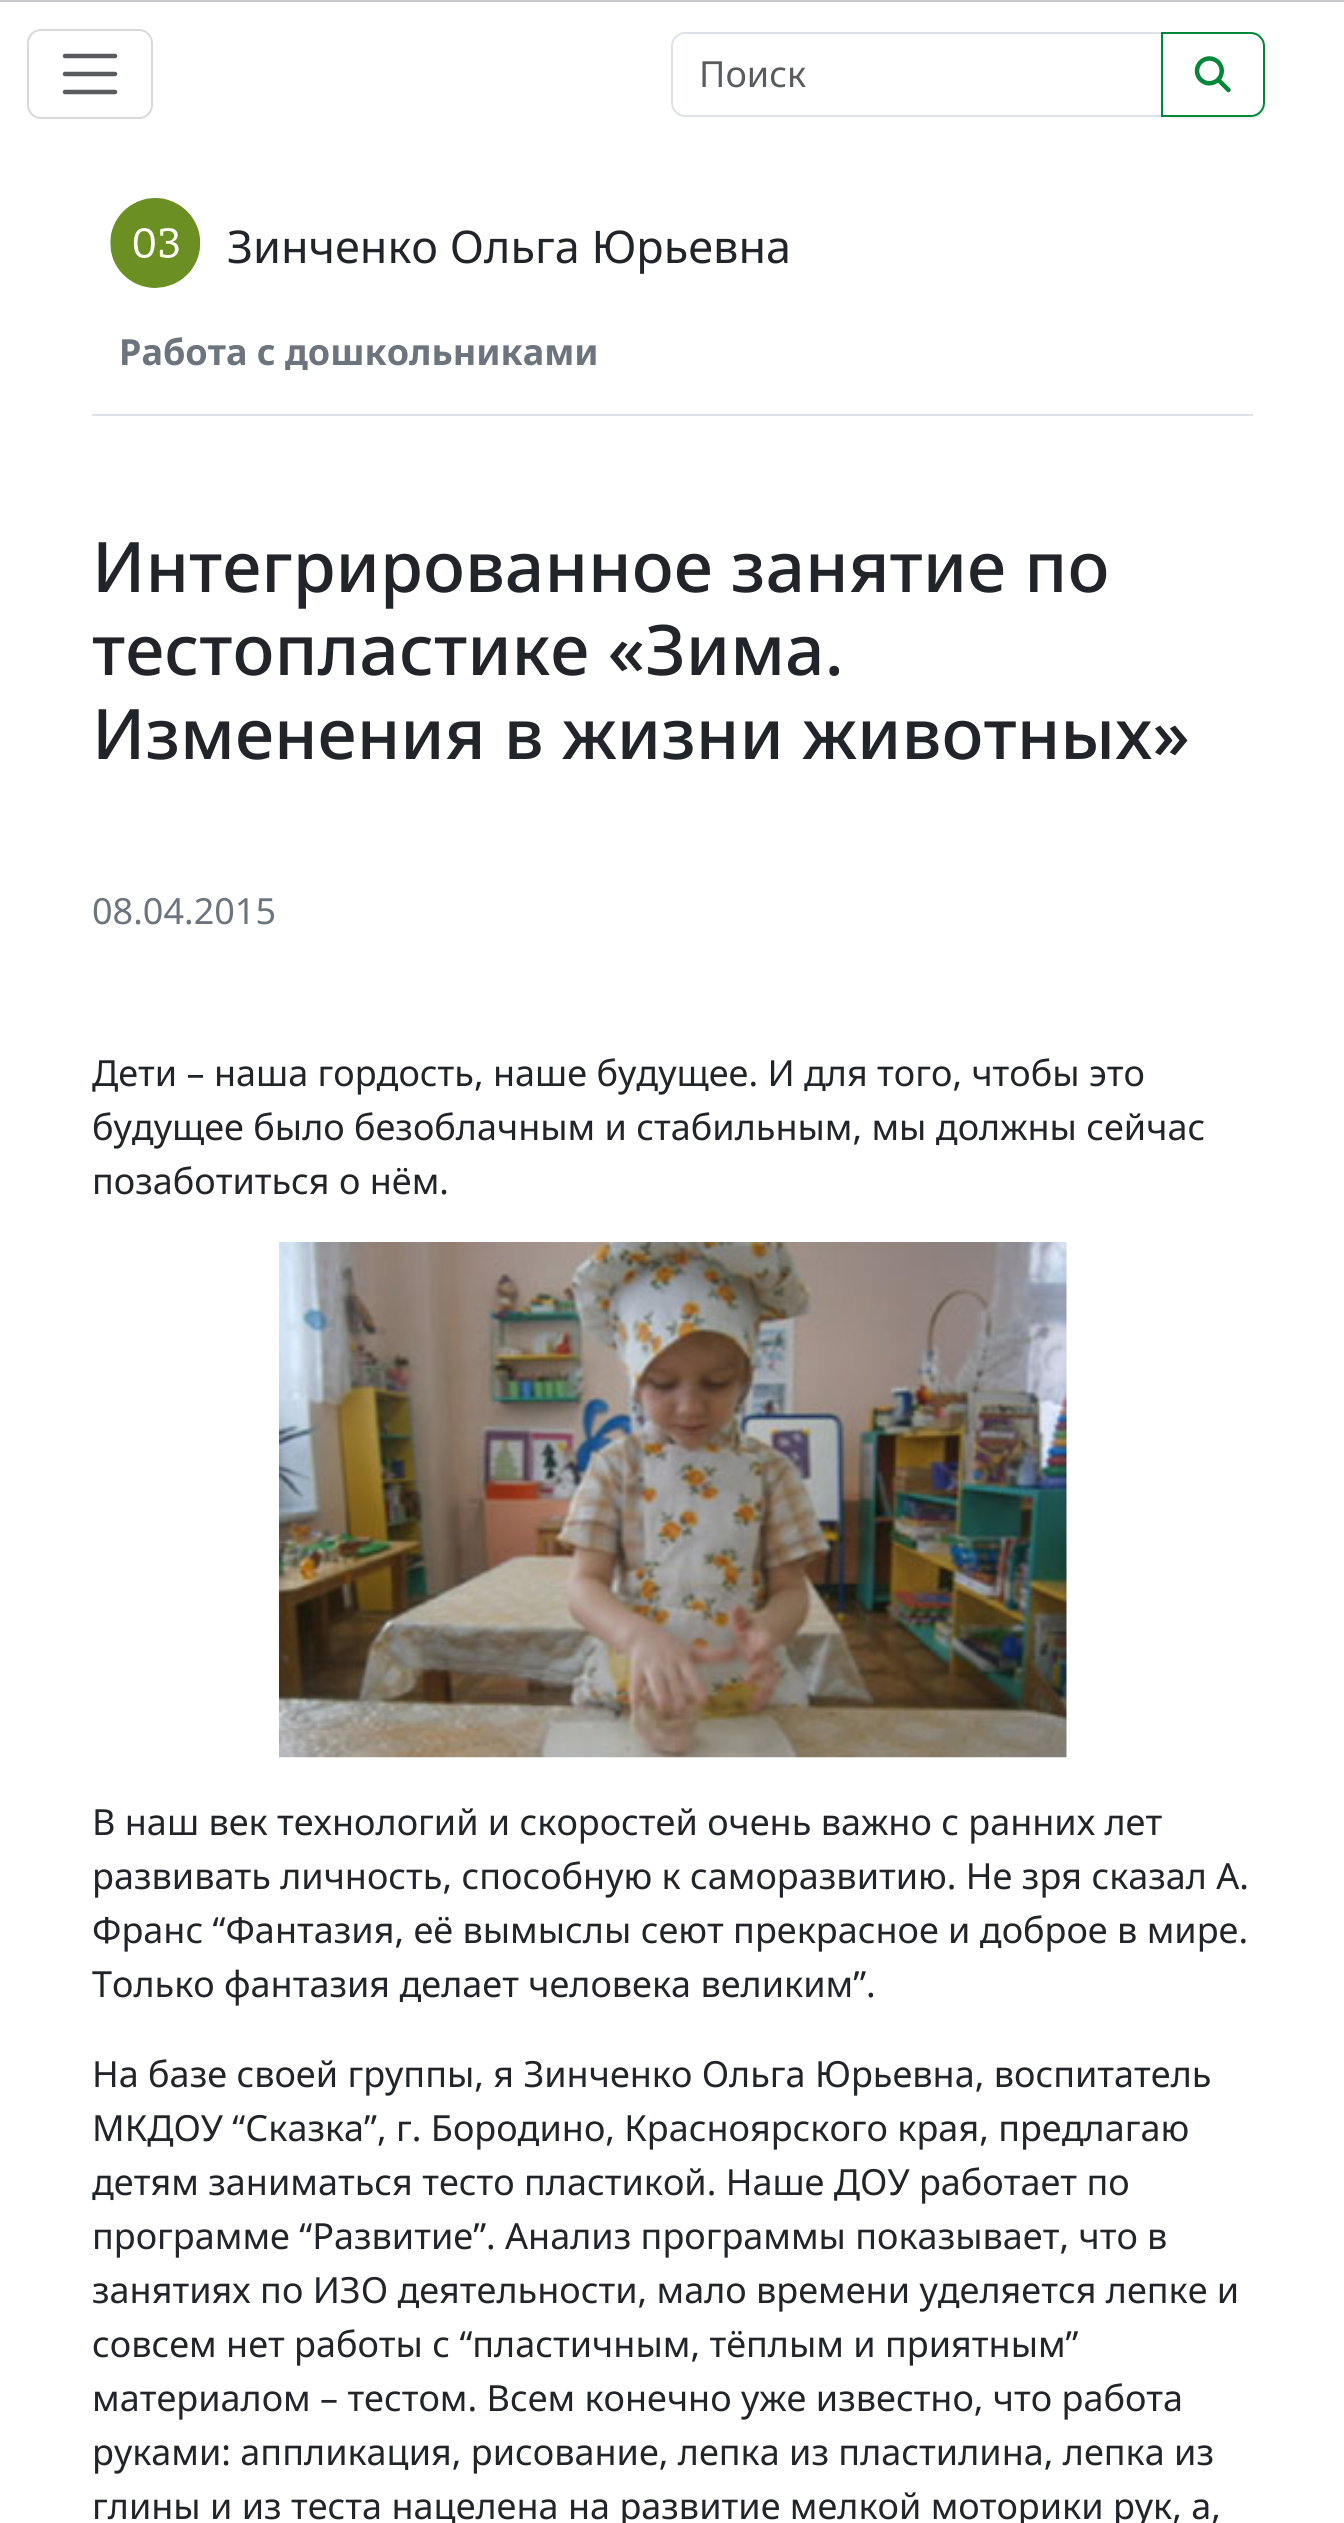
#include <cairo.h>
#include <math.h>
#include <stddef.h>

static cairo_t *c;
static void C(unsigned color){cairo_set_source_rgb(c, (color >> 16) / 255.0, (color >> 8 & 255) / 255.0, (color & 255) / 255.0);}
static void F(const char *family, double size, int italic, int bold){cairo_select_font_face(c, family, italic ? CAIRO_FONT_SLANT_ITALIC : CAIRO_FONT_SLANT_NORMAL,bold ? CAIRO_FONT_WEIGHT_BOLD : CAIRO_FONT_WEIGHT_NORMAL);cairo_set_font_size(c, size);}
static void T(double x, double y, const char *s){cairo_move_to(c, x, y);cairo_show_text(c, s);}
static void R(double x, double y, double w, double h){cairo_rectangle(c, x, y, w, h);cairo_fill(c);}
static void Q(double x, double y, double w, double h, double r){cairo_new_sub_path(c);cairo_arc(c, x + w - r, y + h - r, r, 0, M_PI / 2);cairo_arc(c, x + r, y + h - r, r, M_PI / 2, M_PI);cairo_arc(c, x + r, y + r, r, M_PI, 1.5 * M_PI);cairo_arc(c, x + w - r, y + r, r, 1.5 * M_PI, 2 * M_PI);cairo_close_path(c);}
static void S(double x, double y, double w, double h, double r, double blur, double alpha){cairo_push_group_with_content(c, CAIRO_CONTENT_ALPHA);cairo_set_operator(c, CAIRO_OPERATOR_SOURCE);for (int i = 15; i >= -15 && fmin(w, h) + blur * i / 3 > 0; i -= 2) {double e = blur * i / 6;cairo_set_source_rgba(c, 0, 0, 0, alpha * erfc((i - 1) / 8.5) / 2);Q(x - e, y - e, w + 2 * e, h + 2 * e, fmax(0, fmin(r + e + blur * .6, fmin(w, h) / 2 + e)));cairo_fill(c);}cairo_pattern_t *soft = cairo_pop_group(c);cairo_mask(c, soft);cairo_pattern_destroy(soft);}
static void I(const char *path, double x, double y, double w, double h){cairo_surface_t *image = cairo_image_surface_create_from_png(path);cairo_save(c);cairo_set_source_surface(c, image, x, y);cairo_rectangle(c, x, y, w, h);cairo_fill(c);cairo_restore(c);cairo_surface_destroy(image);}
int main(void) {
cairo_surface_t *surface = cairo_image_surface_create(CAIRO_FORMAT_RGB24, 1344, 2523);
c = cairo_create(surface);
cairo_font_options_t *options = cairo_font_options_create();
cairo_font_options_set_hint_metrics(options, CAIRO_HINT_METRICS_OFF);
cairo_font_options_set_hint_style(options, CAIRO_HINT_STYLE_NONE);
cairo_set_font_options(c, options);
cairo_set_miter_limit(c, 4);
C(0xffffff);
cairo_paint(c);
C(0xc8c9ca);
R(0,0,1344,2);
Q(28,30,124,88,13);
C(0xd9d9d9);
cairo_stroke(c);
cairo_new_path(c);
cairo_move_to(c,65,56);
cairo_line_to(c,115,56);
cairo_move_to(c,65,74);
cairo_line_to(c,115,74);
cairo_move_to(c,65,92);
cairo_line_to(c,115,92);
C(0x595c5f);
cairo_set_line_width(c,4.5);
cairo_set_line_cap(c,CAIRO_LINE_CAP_ROUND);
cairo_stroke(c);
cairo_new_path(c);
cairo_move_to(c,685,33);
cairo_line_to(c,1162,33);
cairo_line_to(c,1162,116);
cairo_line_to(c,685,116);
cairo_curve_to(c,678,116,672,110,672,103);
cairo_line_to(c,672,46);
cairo_curve_to(c,672,39,678,33,685,33);
cairo_close_path(c);
C(0xdee2e6);
cairo_set_line_width(c,2);
cairo_set_line_cap(c,CAIRO_LINE_CAP_BUTT);
cairo_stroke(c);
F("Noto Sans",36,0,0);
C(0x595c5f);
T(699,87,"Поиск");
cairo_save(c);
cairo_set_fill_rule(c,CAIRO_FILL_RULE_EVEN_ODD);
cairo_new_path(c);
cairo_move_to(c,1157,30);
cairo_line_to(c,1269,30);
cairo_line_to(c,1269,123);
cairo_line_to(c,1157,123);
cairo_close_path(c);
cairo_move_to(c,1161,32);
cairo_line_to(c,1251,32);
cairo_curve_to(c,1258.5,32,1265,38.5,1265,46);
cairo_line_to(c,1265,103);
cairo_curve_to(c,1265,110.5,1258.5,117,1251,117);
cairo_line_to(c,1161,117);
cairo_close_path(c);
cairo_clip(c);
C(0x000000);
S(1161,34,104,85,14,1,.07);
cairo_restore(c);
cairo_new_path(c);
cairo_move_to(c,1162,33);
cairo_line_to(c,1251,33);
cairo_curve_to(c,1258,33,1264,39,1264,46);
cairo_line_to(c,1264,103);
cairo_curve_to(c,1264,110,1258,116,1251,116);
cairo_line_to(c,1162,116);
cairo_close_path(c);
C(0x008738);
cairo_stroke(c);
I("1.png",1194,56,37,37);
C(0xdee2e6);
R(92,414,1161,2);
I("2.png",110,198,91,90);
F("Noto Sans",45,0,0);
C(0x212529);
T(227,263,"Зинченко Ольга Юрьевна");
F("Noto Sans",36,0,1);
C(0x6c757d);
T(119,365,"Работа с дошкольниками");
F("Noto Sans Medium",69.7,0,0);
C(0x212529);
T(92,592,"Интегрированное занятие по");
T(92,675,"тестопластике «Зима.");
T(92,759,"Изменения в жизни животных»");
F("Noto Sans",36,0,0);
C(0x6c757d);
T(92,924,"08.04.2015");
C(0x212529);
T(92,1086,"Дети – наша гордость, наше будущее. И для того, чтобы это");
T(92,1140,"будущее было безоблачным и стабильным, мы должны сейчас");
T(92,1194,"позаботиться о нём.");
I("3.png",279,1242,788,516);
T(92,1835,"В наш век технологий и скоростей очень важно с ранних лет");
T(92,1889,"развивать личность, способную к саморазвитию. Не зря сказал А.");
T(92,1943,"Франс “Фантазия, её вымыслы сеют прекрасное и доброе в мире.");
T(92,1997,"Только фантазия делает человека великим”.");
T(92,2087,"На базе своей группы, я Зинченко Ольга Юрьевна, воспитатель");
T(92,2141,"МКДОУ “Сказка”, г. Бородино, Красноярского края, предлагаю");
T(92,2195,"детям заниматься тесто пластикой. Наше ДОУ работает по");
T(92,2249,"программе “Развитие”. Анализ программы показывает, что в");
T(92,2303,"занятиях по ИЗО деятельности, мало времени уделяется лепке и");
T(92,2357,"совсем нет работы с “пластичным, тёплым и приятным”");
T(92,2411,"материалом – тестом. Всем конечно уже известно, что работа");
T(92,2465,"руками: аппликация, рисование, лепка из пластилина, лепка из");
T(92,2519,"глины и из теста нацелена на развитие мелкой моторики рук, а,");
cairo_surface_write_to_png(surface, "o.png");
cairo_font_options_destroy(options);
cairo_destroy(c);
cairo_surface_destroy(surface);
return 0;
}
